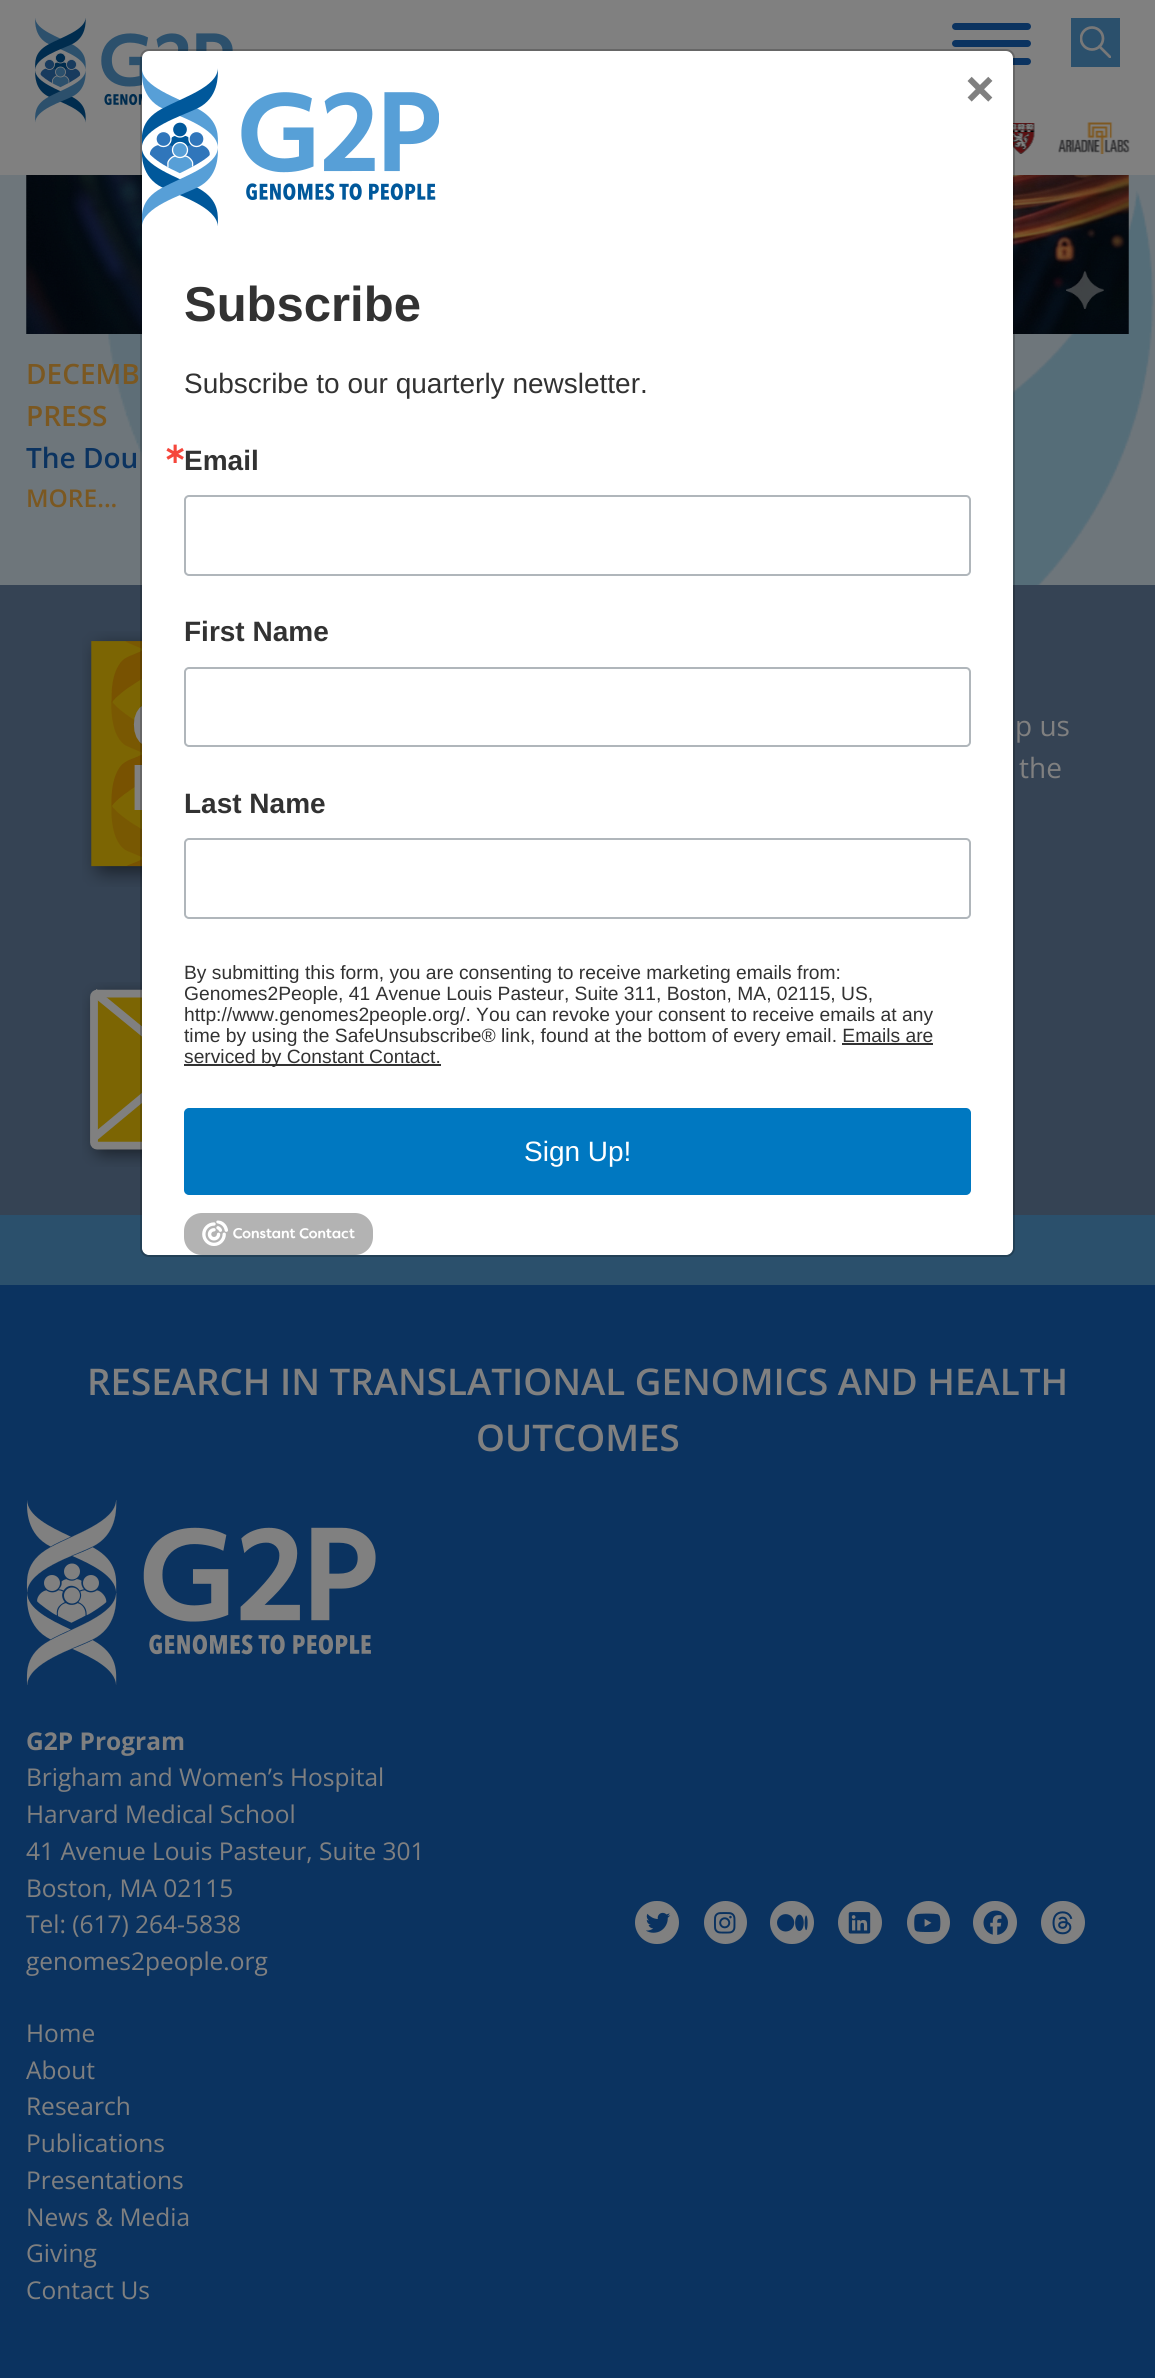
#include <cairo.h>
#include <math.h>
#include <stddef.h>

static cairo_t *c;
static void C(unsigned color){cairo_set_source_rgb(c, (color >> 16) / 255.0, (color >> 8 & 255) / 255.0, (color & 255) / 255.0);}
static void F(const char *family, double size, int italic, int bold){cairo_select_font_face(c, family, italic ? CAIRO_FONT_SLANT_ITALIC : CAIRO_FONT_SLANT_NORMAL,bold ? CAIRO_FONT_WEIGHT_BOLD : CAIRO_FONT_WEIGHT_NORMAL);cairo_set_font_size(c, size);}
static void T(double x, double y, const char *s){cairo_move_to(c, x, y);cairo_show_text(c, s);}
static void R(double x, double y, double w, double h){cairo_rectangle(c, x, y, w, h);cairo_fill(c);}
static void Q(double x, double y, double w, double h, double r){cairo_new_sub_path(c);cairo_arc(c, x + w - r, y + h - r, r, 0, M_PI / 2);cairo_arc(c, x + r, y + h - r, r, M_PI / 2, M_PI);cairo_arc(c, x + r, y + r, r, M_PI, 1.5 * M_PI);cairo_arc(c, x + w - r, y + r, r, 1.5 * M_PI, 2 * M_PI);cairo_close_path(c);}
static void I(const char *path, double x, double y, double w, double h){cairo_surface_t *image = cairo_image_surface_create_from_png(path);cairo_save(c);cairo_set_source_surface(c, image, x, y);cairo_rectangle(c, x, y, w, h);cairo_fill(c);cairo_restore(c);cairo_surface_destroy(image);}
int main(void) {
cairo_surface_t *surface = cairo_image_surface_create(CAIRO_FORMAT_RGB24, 1155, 2378);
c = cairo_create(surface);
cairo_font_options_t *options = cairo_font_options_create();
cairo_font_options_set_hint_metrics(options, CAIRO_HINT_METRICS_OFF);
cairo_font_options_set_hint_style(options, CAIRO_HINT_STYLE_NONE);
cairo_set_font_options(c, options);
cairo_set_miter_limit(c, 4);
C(0x808080);
cairo_paint(c);
I("1.png",108,190,1046,395);
I("2.png",35,18,198,105);
C(0x0b3360);
Q(952,23,79,7,3.5);
cairo_fill(c);
Q(952,40,79,7,3.5);
cairo_fill(c);
Q(952,58,79,7,3.5);
cairo_fill(c);
C(0x2b506c);
R(1071,18,49,49);
cairo_save(c);
cairo_rectangle(c,1080,26,31,32);
cairo_clip(c);
cairo_arc(c,1092,38.5,11,0,2 * M_PI);
C(0x787878);
cairo_set_line_width(c,2.7);
cairo_stroke(c);
cairo_new_path(c);
cairo_move_to(c,1099.5,46.5);
cairo_line_to(c,1110,57);
cairo_set_line_cap(c,CAIRO_LINE_CAP_ROUND);
cairo_stroke(c);
cairo_restore(c);
I("3.png",1013,123,22,31);
I("4.png",1058,122,72,32);
C(0x354354);
R(0,585,1155,630);
I("5.png",82,982,60,185);
C(0x2b506c);
R(0,1215,1155,70);
cairo_set_source_rgba(c,0.169,0.314,0.424,0.2);
R(0,175,1155,410);
I("17.png",26,175,1103,159);
C(0xffffff);
Q(142,51,871,1204,7);
cairo_fill(c);
I("8.png",82,631,60,256);
Q(141,50,873,1206,8);
cairo_set_source_rgba(c,0,0,0,0.2);
cairo_stroke(c);
I("6.png",142,68,297,158);
F("Open Sans",56,0,1);
C(0x808080);
T(964,109,"×");
C(0xffffff);
Q(142,226,871,1029,9);
cairo_fill(c);
F("Liberation Sans",49,0,1);
C(0x323232);
T(184,321,"Subscribe");
F("Liberation Sans",28,0,0);
T(184,393,"Subscribe to our quarterly newsletter.");
F("DejaVu Sans",28,0,1);
C(0xf5463b);
T(163,463,"∗");
F("Liberation Sans",28,0,1);
C(0x323232);
T(184,470,"Email");
Q(185,496,785,79,4);
C(0xb0b6bb);
cairo_stroke(c);
C(0x323232);
T(184,641,"First Name");
Q(185,668,785,78,4);
C(0xb0b6bb);
cairo_stroke(c);
C(0x323232);
T(184,813,"Last Name");
Q(185,839,785,79,4);
C(0xb0b6bb);
cairo_stroke(c);
F("Liberation Sans",19.25,0,0);
C(0x323232);
T(184,979,"By submitting this form, you are consenting to receive marketing emails from:");
T(184,1000,"Genomes2People, 41 Avenue Louis Pasteur, Suite 311, Boston, MA, 02115, US,");
T(184,1021,"http://www.genomes2people.org/. You can revoke your consent to receive emails at any");
T(184,1042,"time by using the SafeUnsubscribe® link, found at the bottom of every email. Emails are");
R(184,1064,257,2);
T(184,1063,"serviced by Constant Contact.");
R(842,1043,91,2);
C(0x0078c1);
Q(185,1109,785,85,4);
cairo_fill_preserve(c);
cairo_stroke(c);
F("Liberation Sans",28,0,0);
C(0xffffff);
T(524,1161,"Sign Up!");
C(0xb3b3b3);
Q(184,1213,189,42,18);
cairo_fill(c);
I("7.png",202,1220,153,26);
F("Open Sans",28,0,0);
C(0x808080);
T(1015,736,"p us");
T(1019,778,"the");
C(0x0b3360);
R(0,1285,1155,1093);
F("Open Sans SemiBold",36.75,0,0);
C(0x808080);
T(87,1395,"RESEARCH IN TRANSLATIONAL GENOMICS AND HEALTH");
T(476,1451,"OUTCOMES");
I("9.png",26,1500,350,185);
F("Open Sans",24.5,0,1);
T(26,1750,"G2P Program");
F("Open Sans",24.5,0,0);
T(26,1786,"Brigham and Women’s Hospital");
T(26,1823,"Harvard Medical School");
T(26,1860,"41 Avenue Louis Pasteur, Suite 301");
T(26,1897,"Boston, MA 02115");
T(26,1933,"Tel: (617) 264-5838");
T(26,1970,"genomes2people.org");
Q(635,1901,44,43,21.5);
cairo_fill(c);
I("10.png",646,1912,25,21);
cairo_arc(c,725.5,1922.5,21.5,0,2 * M_PI);
cairo_fill(c);
I("11.png",714,1912,22,22);
Q(770,1901,44,43,21.5);
cairo_fill(c);
I("12.png",777,1914,31,18);
Q(838,1901,44,43,21.5);
cairo_fill(c);
I("13.png",848,1912,23,22);
cairo_arc(c,928.5,1922.5,21.5,0,2 * M_PI);
cairo_fill(c);
I("14.png",914,1913,27,19);
Q(973,1901,44,43,21.5);
cairo_fill(c);
I("15.png",983,1910,25,25);
Q(1041,1901,44,43,21.5);
cairo_fill(c);
I("16.png",1052,1911,21,24);
T(26,2042,"Home");
T(26,2079,"About");
T(26,2115,"Research");
T(26,2152,"Publications");
T(26,2189,"Presentations");
T(26,2226,"News & Media");
T(26,2262,"Giving");
T(26,2299,"Contact Us");
F("Open Sans SemiBold",28,0,0);
C(0x7b5821);
T(26,384,"DECEMB");
T(26,426,"PRESS");
C(0x0b3360);
T(26,468,"The Dou");
F("Open Sans SemiBold",24.5,0,0);
C(0x7b5821);
T(26,507,"MORE...");
cairo_surface_write_to_png(surface, "o.png");
cairo_font_options_destroy(options);
cairo_destroy(c);
cairo_surface_destroy(surface);
return 0;
}
